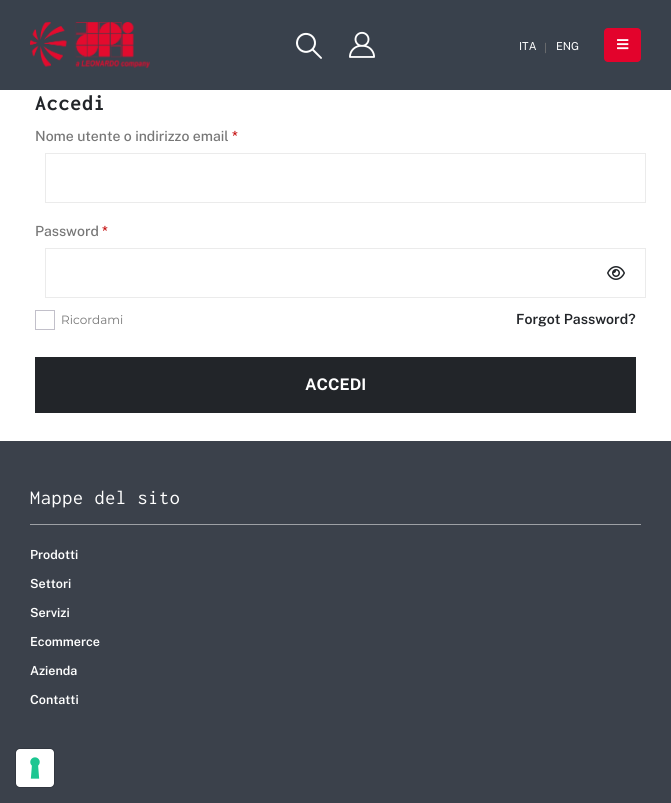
#include <cairo.h>
#include <math.h>
#include <stddef.h>

static cairo_t *c;
static void C(unsigned color){cairo_set_source_rgb(c, (color >> 16) / 255.0, (color >> 8 & 255) / 255.0, (color & 255) / 255.0);}
static void F(const char *family, double size, int italic, int bold){cairo_select_font_face(c, family, italic ? CAIRO_FONT_SLANT_ITALIC : CAIRO_FONT_SLANT_NORMAL,bold ? CAIRO_FONT_WEIGHT_BOLD : CAIRO_FONT_WEIGHT_NORMAL);cairo_set_font_size(c, size);}
static void T(double x, double y, const char *s){cairo_move_to(c, x, y);cairo_show_text(c, s);}
static void L(double x, double y, const char *s, double letter, double word){cairo_move_to(c, x, y);while (*s) {char ch[5] = {0};int n = 0;do ch[n++] = *s++; while ((*s & 0xC0) == 0x80);cairo_show_text(c, ch);cairo_rel_move_to(c, letter + word * (*ch == ' '), 0);}}
static void R(double x, double y, double w, double h){cairo_rectangle(c, x, y, w, h);cairo_fill(c);}
static void Q(double x, double y, double w, double h, double r){cairo_new_sub_path(c);cairo_arc(c, x + w - r, y + h - r, r, 0, M_PI / 2);cairo_arc(c, x + r, y + h - r, r, M_PI / 2, M_PI);cairo_arc(c, x + r, y + r, r, M_PI, 1.5 * M_PI);cairo_arc(c, x + w - r, y + r, r, 1.5 * M_PI, 2 * M_PI);cairo_close_path(c);}
static void I(const char *path, double x, double y, double w, double h){cairo_surface_t *image = cairo_image_surface_create_from_png(path);cairo_save(c);cairo_set_source_surface(c, image, x, y);cairo_rectangle(c, x, y, w, h);cairo_fill(c);cairo_restore(c);cairo_surface_destroy(image);}
int main(void) {
cairo_surface_t *surface = cairo_image_surface_create(CAIRO_FORMAT_RGB24, 671, 803);
c = cairo_create(surface);
cairo_font_options_t *options = cairo_font_options_create();
cairo_font_options_set_hint_metrics(options, CAIRO_HINT_METRICS_OFF);
cairo_font_options_set_hint_style(options, CAIRO_HINT_STYLE_NONE);
cairo_set_font_options(c, options);
cairo_set_miter_limit(c, 4);
C(0xffffff);
cairo_paint(c);
C(0x39414c);
R(0,0,671,90);
I("1.png",30,22,120,46);
I("2.png",296,32,26,27);
I("3.png",349,31,26,27);
F("Public Sans",11,0,0);
C(0xffffff);
T(519,50,"ITA");
F("Montserrat",11,0,0);
C(0x777777);
T(544,51,"|");
F("Public Sans",11,0,0);
C(0xffffff);
T(556,50,"ENG");
C(0xe3032c);
Q(604,28,37,34,4);
cairo_fill(c);
I("4.png",617,39,12,11);
F("Inconsolata",22,0,1);
C(0x222529);
L(35,110,"Accedi",.75,0);
F("Public Sans Medium",14,0,0);
C(0x777777);
T(35,141,"Nome utente o indirizzo email");
C(0xc10000);
T(232,141,"*");
cairo_rectangle(c,45.5,153.5,600,49);
C(0xebebeb);
cairo_set_line_width(c,1);
cairo_stroke(c);
C(0x777777);
T(35,236,"Password");
C(0xc10000);
T(102,236,"*");
cairo_rectangle(c,45.5,248.5,600,49);
C(0xebebeb);
cairo_stroke(c);
I("5.png",607,266,18,14);
cairo_rectangle(c,35.5,310.5,19,19);
C(0xc2c0ca);
cairo_stroke(c);
F("Montserrat",12,0,0);
C(0x777777);
T(61,324,"Ricordami");
F("Public Sans SemiBold",14,0,0);
C(0x222529);
T(516,324,"Forgot Password?");
R(35,357,601,56);
F("Public Sans",16,0,1);
C(0xffffff);
T(305,390,"ACCEDI");
C(0x3b414b);
R(0,441,671,362);
F("Inconsolata",20,0,0);
C(0xffffff);
L(30,504,"Mappe del sito",.75,0);
C(0x9da0a5);
R(30,524,611,1);
F("Public Sans SemiBold",12.5,0,0);
C(0xffffff);
T(30,559,"Prodotti");
T(30,588,"Settori");
T(30,617,"Servizi");
T(30,646,"Ecommerce");
T(30,675,"Azienda");
T(30,704,"Contatti");
Q(15.5,748.5,39,39,4.5);
C(0x323740);
cairo_stroke(c);
C(0xffffff);
Q(16,749,38,38,4);
cairo_fill(c);
I("6.png",30,757,10,22);
cairo_surface_write_to_png(surface, "o.png");
cairo_font_options_destroy(options);
cairo_destroy(c);
cairo_surface_destroy(surface);
return 0;
}
